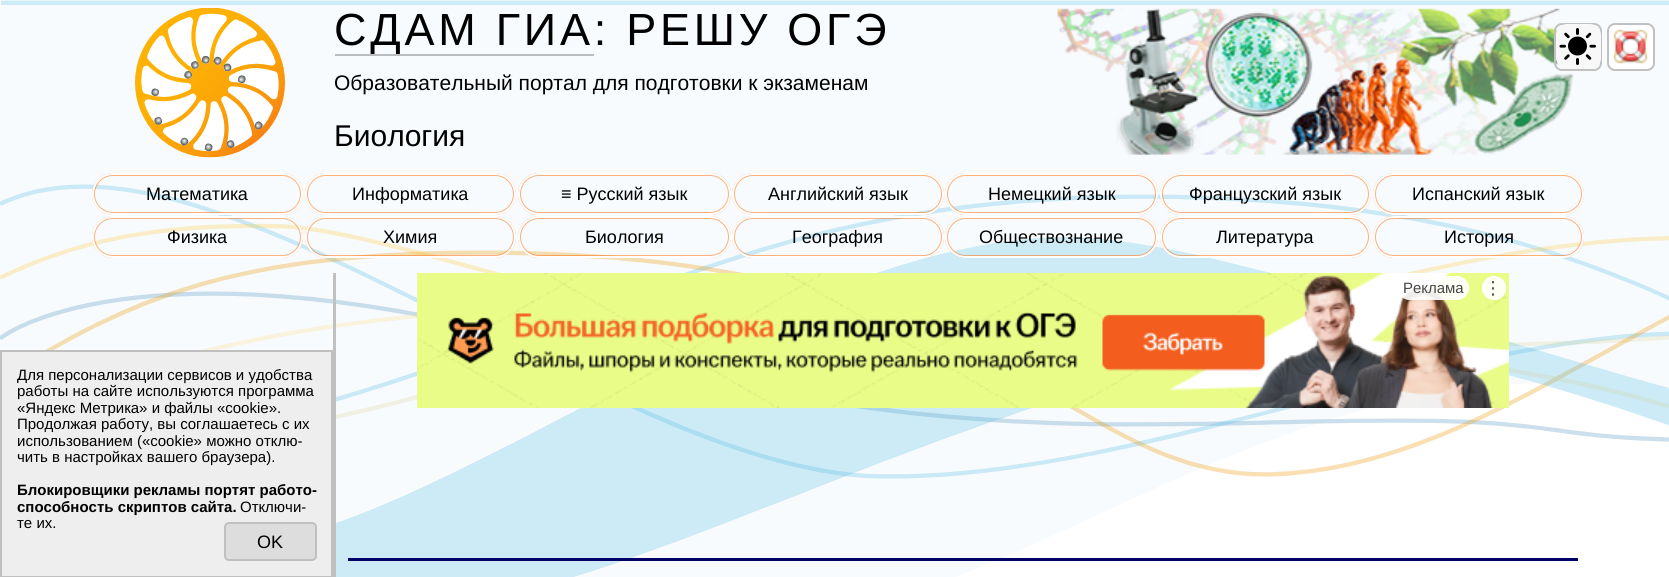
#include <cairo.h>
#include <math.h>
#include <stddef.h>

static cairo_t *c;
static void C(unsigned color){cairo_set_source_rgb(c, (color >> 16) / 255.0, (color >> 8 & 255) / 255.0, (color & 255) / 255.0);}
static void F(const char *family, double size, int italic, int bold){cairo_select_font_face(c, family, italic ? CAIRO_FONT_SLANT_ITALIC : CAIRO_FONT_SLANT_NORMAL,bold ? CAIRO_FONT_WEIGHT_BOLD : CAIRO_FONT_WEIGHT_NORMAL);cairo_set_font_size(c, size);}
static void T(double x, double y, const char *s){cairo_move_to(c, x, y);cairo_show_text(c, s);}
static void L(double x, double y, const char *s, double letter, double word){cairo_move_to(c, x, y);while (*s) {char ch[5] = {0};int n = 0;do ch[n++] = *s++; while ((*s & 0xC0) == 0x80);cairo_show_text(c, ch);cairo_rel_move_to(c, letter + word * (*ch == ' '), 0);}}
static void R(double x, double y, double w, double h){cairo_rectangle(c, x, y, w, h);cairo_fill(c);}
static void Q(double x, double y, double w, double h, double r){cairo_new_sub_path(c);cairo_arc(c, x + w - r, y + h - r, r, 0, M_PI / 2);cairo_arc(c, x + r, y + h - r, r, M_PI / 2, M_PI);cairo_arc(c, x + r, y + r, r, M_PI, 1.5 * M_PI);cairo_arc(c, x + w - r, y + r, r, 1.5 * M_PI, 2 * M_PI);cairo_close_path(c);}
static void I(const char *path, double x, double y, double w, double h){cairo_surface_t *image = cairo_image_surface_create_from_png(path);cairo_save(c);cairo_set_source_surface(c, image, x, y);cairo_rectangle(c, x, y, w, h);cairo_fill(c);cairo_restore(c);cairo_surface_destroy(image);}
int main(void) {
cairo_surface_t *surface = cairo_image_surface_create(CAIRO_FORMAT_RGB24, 1669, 577);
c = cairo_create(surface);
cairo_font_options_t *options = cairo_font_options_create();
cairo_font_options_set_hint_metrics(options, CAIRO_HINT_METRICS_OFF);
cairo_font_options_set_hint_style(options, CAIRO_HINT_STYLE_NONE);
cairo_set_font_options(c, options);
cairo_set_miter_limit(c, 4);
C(0xffffff);
cairo_paint(c);
I("1.png",0,0,1669,577);
I("2.png",135,8,150,150);
F("Liberation Sans",45,0,0);
C(0x000000);
L(334,45,"СДАМ ГИА: РЕШУ ОГЭ",3.75,0);
C(0xbabcbe);
R(335,54,259,2);
I("3.png",1057,8,517,147);
F("Liberation Sans",21,0,0);
C(0x000000);
T(334,90,"Образовательный портал для подготовки к экзаменам");
F("Liberation Sans",30,0,0);
T(334,146,"Биология");
Q(93.5,174.5,208,39,19.5);
cairo_set_source_rgba(c,1,0.4,0,0.5);
cairo_set_line_width(c,3);
cairo_stroke(c);
Q(93,174,209,40,20);
C(0xffffff);
cairo_set_line_width(c,2);
cairo_stroke(c);
F("Liberation Sans",18,0,0);
C(0x000000);
T(146,200,"Математика");
Q(306.5,174.5,208,39,19.5);
C(0xfcb17e);
cairo_set_line_width(c,3);
cairo_stroke(c);
Q(306,174,209,40,20);
C(0xffffff);
cairo_set_line_width(c,2);
cairo_stroke(c);
C(0x000000);
T(352,200,"Информатика");
Q(519.5,174.5,210,39,19.5);
C(0xfcb17e);
cairo_set_line_width(c,3);
cairo_stroke(c);
Q(519,174,211,40,20);
C(0xffffff);
cairo_set_line_width(c,2);
cairo_stroke(c);
C(0xf8fbfd);
Q(518,173,213,42,21);
cairo_fill(c);
Q(519.5,174.5,210,39,19.5);
cairo_set_source_rgba(c,1,0.4,0,0.5);
cairo_set_line_width(c,3);
cairo_stroke(c);
Q(519,174,211,40,20);
C(0xffffff);
cairo_set_line_width(c,2);
cairo_stroke(c);
C(0x000000);
T(561,200,"≡ Русский язык");
Q(733.5,174.5,209,39,19.5);
cairo_set_source_rgba(c,1,0.4,0,0.5);
cairo_set_line_width(c,3);
cairo_stroke(c);
Q(733,174,210,40,20);
C(0xffffff);
cairo_set_line_width(c,2);
cairo_stroke(c);
C(0x000000);
T(768,200,"Английский язык");
Q(946.5,174.5,210,39,19.5);
cairo_set_source_rgba(c,1,0.4,0,0.5);
cairo_set_line_width(c,3);
cairo_stroke(c);
Q(946,174,211,40,20);
C(0xffffff);
cairo_set_line_width(c,2);
cairo_stroke(c);
C(0x000000);
T(988,200,"Немецкий язык");
Q(1161.5,174.5,208,39,19.5);
cairo_set_source_rgba(c,1,0.4,0,0.5);
cairo_set_line_width(c,3);
cairo_stroke(c);
Q(1161,174,209,40,20);
C(0xffffff);
cairo_set_line_width(c,2);
cairo_stroke(c);
C(0x000000);
T(1189,200,"Французский язык");
Q(1374.5,174.5,208,39,19.5);
cairo_set_source_rgba(c,1,0.4,0,0.5);
cairo_set_line_width(c,3);
cairo_stroke(c);
Q(1374,174,209,40,20);
C(0xffffff);
cairo_set_line_width(c,2);
cairo_stroke(c);
C(0x000000);
T(1412,200,"Испанский язык");
Q(93.5,217.5,208,39,19.5);
cairo_set_source_rgba(c,1,0.4,0,0.5);
cairo_set_line_width(c,3);
cairo_stroke(c);
Q(93,217,209,40,20);
C(0xffffff);
cairo_set_line_width(c,2);
cairo_stroke(c);
C(0x000000);
T(167,243,"Физика");
Q(306.5,217.5,208,39,19.5);
cairo_set_source_rgba(c,1,0.4,0,0.5);
cairo_set_line_width(c,3);
cairo_stroke(c);
Q(306,217,209,40,20);
C(0xffffff);
cairo_set_line_width(c,2);
cairo_stroke(c);
C(0x000000);
T(383,243,"Химия");
Q(519.5,217.5,210,39,19.5);
cairo_set_source_rgba(c,1,0.4,0,0.5);
cairo_set_line_width(c,3);
cairo_stroke(c);
Q(519,217,211,40,20);
C(0xffffff);
cairo_set_line_width(c,2);
cairo_stroke(c);
C(0x000000);
T(585,243,"Биология");
Q(733.5,217.5,209,39,19.5);
cairo_set_source_rgba(c,1,0.4,0,0.5);
cairo_set_line_width(c,3);
cairo_stroke(c);
Q(733,217,210,40,20);
C(0xffffff);
cairo_set_line_width(c,2);
cairo_stroke(c);
C(0x000000);
T(792,243,"География");
Q(946.5,217.5,210,39,19.5);
cairo_set_source_rgba(c,1,0.4,0,0.5);
cairo_set_line_width(c,3);
cairo_stroke(c);
Q(946,217,211,40,20);
C(0xffffff);
cairo_set_line_width(c,2);
cairo_stroke(c);
C(0x000000);
T(979,243,"Обществознание");
Q(1161.5,217.5,208,39,19.5);
cairo_set_source_rgba(c,1,0.4,0,0.5);
cairo_set_line_width(c,3);
cairo_stroke(c);
Q(1161,217,209,40,20);
C(0xffffff);
cairo_set_line_width(c,2);
cairo_stroke(c);
C(0x000000);
T(1216,243,"Литература");
Q(1374.5,217.5,208,39,19.5);
cairo_set_source_rgba(c,1,0.4,0,0.5);
cairo_set_line_width(c,3);
cairo_stroke(c);
Q(1374,217,209,40,20);
C(0xffffff);
cairo_set_line_width(c,2);
cairo_stroke(c);
C(0x000000);
T(1444,243,"История");
C(0xc0c0c0);
R(333,273,3,304);
I("4.png",417,273,1092,135);
cairo_set_source_rgba(c,1,1,1,0.7);
Q(1398,276,71,24,12);
cairo_fill(c);
C(0xf9fedb);
cairo_arc(c,1494,288,12,0,2 * M_PI);
cairo_fill(c);
cairo_set_source_rgba(c,1,1,1,0.7);
Q(1398,276,71,24,12);
cairo_fill(c);
F("Liberation Sans",15,0,0);
C(0x454542);
T(1403,293,"Реклама");
cairo_set_source_rgba(c,1,1,1,0.7);
cairo_new_path(c);
cairo_arc(c,1494,288,12,0,2 * M_PI);
cairo_fill(c);
F("DejaVu Sans",18,0,0);
C(0x454542);
T(1484,294,"⋮");
C(0x000066);
R(348,558,1230,3);
Q(1555,24,46,46,7);
C(0xc0c0c0);
cairo_stroke(c);
I("5.png",1556,24,45,45);
C(0xffffff);
Q(1607,23,48,48,8);
cairo_fill(c);
I("6.png",1613,29,35,35);
Q(1608,24,46,46,7);
C(0xc0c0c0);
cairo_stroke(c);
C(0xeeeeee);
cairo_rectangle(c,1,351,331,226);
cairo_fill_preserve(c);
C(0xc0c0c0);
cairo_stroke(c);
F("Liberation Sans",15,0,0);
C(0x000000);
T(17,380,"Для персонализации сервисов и удобства");
T(17,396,"работы на сайте используются программа");
T(17,413,"«Яндекс Метрика» и файлы «cookie».");
T(17,429,"Продолжая работу, вы соглашаетесь с их");
T(17,446,"использованием («cookie» можно отклю-");
T(17,462,"чить в настройках вашего браузера).");
F("Liberation Sans",15,0,1);
T(17,495,"Блокировщики рекламы портят работо-");
T(17,512,"способность скриптов сайта.");
F("Liberation Sans",15,0,0);
T(240,512,"Отключи-");
T(17,528,"те их.");
C(0xdddddd);
Q(225,523,91,37,4);
cairo_fill_preserve(c);
C(0xc0c0c0);
cairo_stroke(c);
F("Liberation Sans",18,0,0);
C(0x000000);
T(257,548,"OK");
cairo_surface_write_to_png(surface, "o.png");
cairo_font_options_destroy(options);
cairo_destroy(c);
cairo_surface_destroy(surface);
return 0;
}
